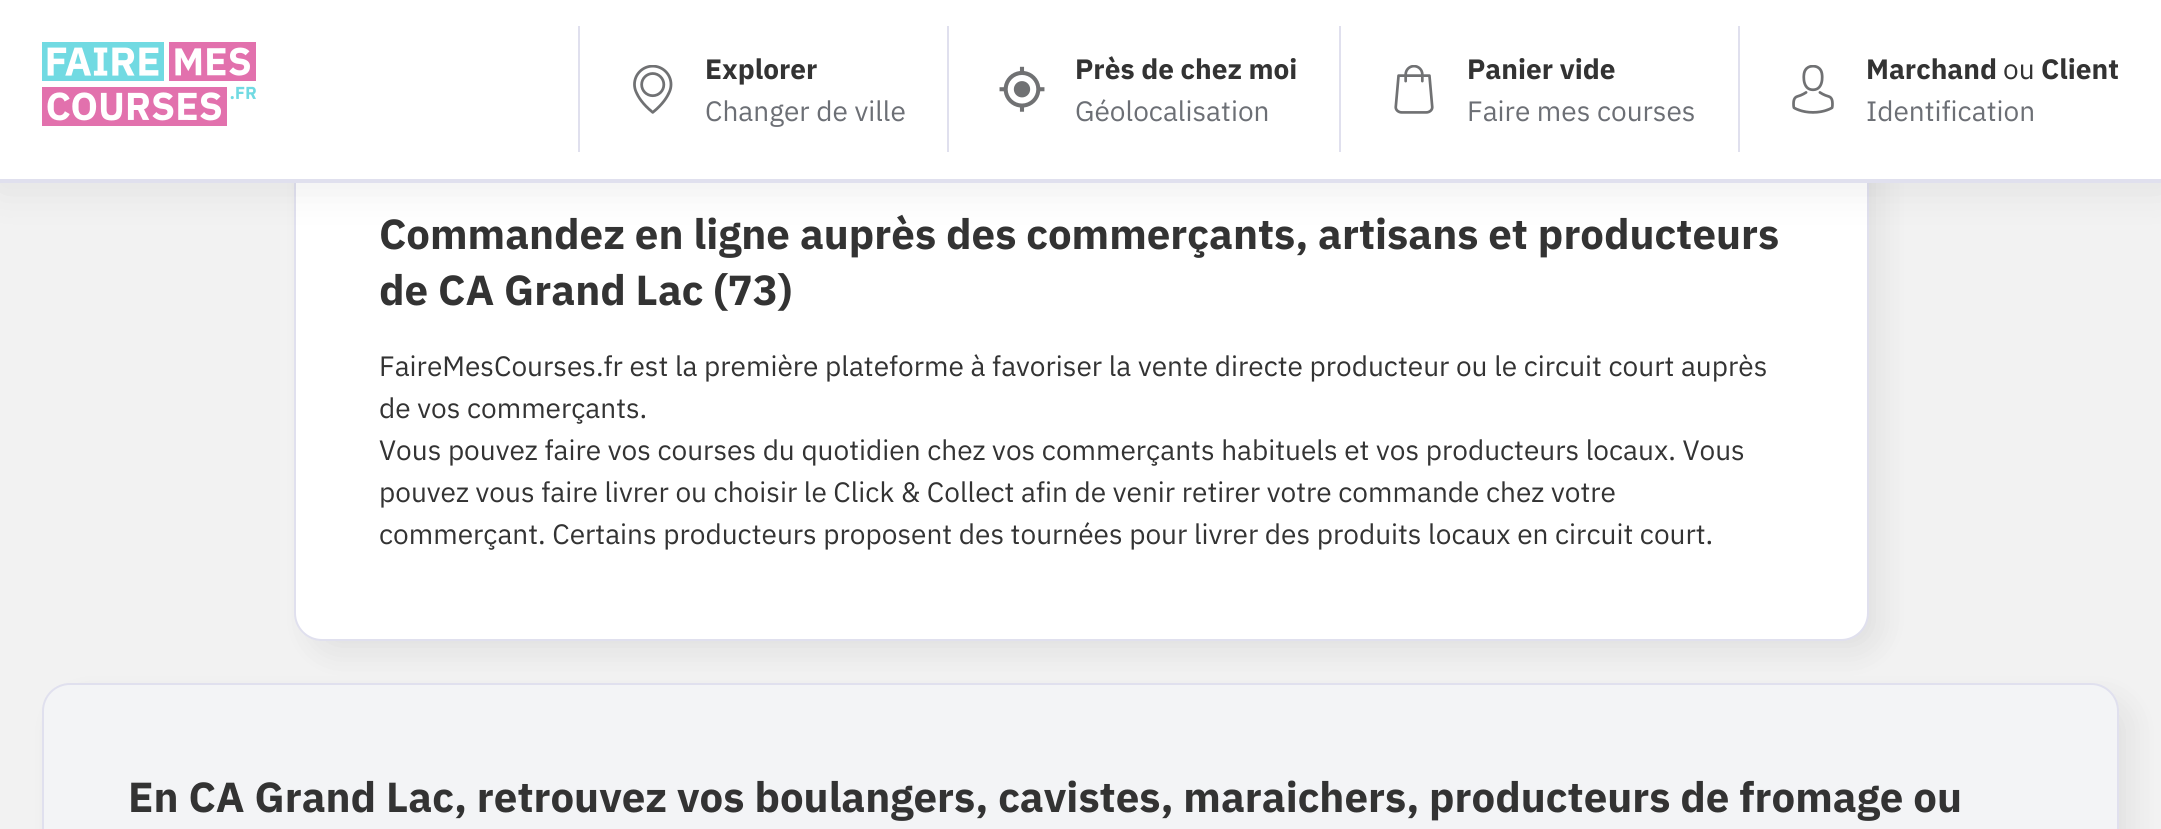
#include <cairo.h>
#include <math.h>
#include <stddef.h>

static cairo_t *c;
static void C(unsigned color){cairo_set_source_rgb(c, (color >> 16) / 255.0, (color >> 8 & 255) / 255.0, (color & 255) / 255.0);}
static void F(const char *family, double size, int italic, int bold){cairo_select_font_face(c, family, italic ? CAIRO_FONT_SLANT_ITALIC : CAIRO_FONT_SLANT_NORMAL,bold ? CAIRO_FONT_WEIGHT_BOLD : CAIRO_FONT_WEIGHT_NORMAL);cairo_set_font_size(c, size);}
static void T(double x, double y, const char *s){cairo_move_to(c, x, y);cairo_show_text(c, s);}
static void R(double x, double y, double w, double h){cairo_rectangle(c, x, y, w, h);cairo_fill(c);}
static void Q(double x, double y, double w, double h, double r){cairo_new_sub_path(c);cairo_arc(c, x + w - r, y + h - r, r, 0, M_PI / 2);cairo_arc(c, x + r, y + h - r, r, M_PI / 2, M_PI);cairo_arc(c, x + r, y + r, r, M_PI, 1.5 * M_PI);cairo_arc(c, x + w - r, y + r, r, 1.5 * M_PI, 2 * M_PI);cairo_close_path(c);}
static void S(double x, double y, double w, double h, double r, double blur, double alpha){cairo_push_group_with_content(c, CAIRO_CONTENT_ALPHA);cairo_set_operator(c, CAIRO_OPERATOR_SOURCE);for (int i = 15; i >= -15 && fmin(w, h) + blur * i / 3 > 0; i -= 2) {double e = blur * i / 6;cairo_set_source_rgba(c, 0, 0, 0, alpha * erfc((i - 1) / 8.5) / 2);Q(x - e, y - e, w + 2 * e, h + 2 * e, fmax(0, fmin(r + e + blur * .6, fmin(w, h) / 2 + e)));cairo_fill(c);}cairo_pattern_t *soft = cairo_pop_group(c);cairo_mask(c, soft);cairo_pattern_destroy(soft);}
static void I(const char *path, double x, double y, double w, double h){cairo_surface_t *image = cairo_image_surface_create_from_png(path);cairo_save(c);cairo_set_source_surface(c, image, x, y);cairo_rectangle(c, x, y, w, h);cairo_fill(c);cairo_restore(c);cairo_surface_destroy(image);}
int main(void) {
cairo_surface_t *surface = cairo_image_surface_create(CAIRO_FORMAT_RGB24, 2161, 829);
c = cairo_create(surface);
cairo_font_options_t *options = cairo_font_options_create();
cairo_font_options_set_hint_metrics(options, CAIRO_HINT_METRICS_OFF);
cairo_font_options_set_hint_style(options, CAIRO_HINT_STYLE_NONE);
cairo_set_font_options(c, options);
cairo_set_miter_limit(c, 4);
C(0xf2f2f2);
cairo_paint(c);
C(0x212121);
S(308,133,1575,522,28,14,.08);
C(0xffffff);
Q(295,120,1573,520,27);
cairo_fill_preserve(c);
C(0xe0e0ee);
cairo_stroke(c);
C(0x212121);
S(0,0,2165,186,0,21,.1);
C(0xffffff);
R(0,0,2161,179);
C(0xe0e0ee);
R(0,179,2161,4);
I("1.png",42,42,214,84);
R(578,26,2,126);
I("2.png",633,65,40,49);
F("IBM Plex Sans",28,0,1);
C(0x333333);
T(705,79,"Explorer");
F("IBM Plex Sans",28,0,0);
C(0x6c6f75);
T(705,121,"Changer de ville");
C(0xe0e0ee);
R(947,26,2,126);
I("3.png",999,66,46,46);
F("IBM Plex Sans",28,0,1);
C(0x333333);
T(1075,79,"Près de chez moi");
F("IBM Plex Sans",28,0,0);
C(0x6c6f75);
T(1075,121,"Géolocalisation");
C(0xe0e0ee);
R(1339,26,2,126);
I("4.png",1394,65,40,49);
F("IBM Plex Sans",28,0,1);
C(0x333333);
T(1467,79,"Panier vide");
F("IBM Plex Sans",28,0,0);
C(0x6c6f75);
T(1467,121,"Faire mes courses");
C(0xe0e0ee);
R(1738,26,2,126);
I("5.png",1792,65,42,49);
F("IBM Plex Sans",28,0,1);
C(0x333333);
T(1866,79,"Marchand");
F("IBM Plex Sans",28,0,0);
T(2003,79,"ou");
F("IBM Plex Sans",28,0,1);
T(2041,79,"Client");
F("IBM Plex Sans",28,0,0);
C(0x6c6f75);
T(1866,121,"Identification");
F("IBM Plex Sans",42,0,1);
C(0x333333);
T(379,249,"Commandez en ligne auprès des commerçants, artisans et producteurs");
T(379,305,"de CA Grand Lac (73)");
F("IBM Plex Sans",28,0,0);
T(379,376,"FaireMesCourses.fr est la première plateforme à favoriser la vente directe producteur ou le circuit court auprès");
T(379,418,"de vos commerçants.");
T(379,460,"Vous pouvez faire vos courses du quotidien chez vos commerçants habituels et vos producteurs locaux. Vous");
T(379,502,"pouvez vous faire livrer ou choisir le Click & Collect afin de venir retirer votre commande chez votre");
T(379,544,"commerçant. Certains producteurs proposent des tournées pour livrer des produits locaux en circuit court.");
C(0x212121);
S(56,697,2077,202,28,14,.08);
C(0xf3f4f6);
Q(43,684,2075,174,27);
cairo_fill_preserve(c);
C(0xe0e0ee);
cairo_stroke(c);
F("IBM Plex Sans",42,0,1);
C(0x333333);
T(128,812,"En CA Grand Lac, retrouvez vos boulangers, cavistes, maraichers, producteurs de fromage ou");
cairo_surface_write_to_png(surface, "o.png");
cairo_font_options_destroy(options);
cairo_destroy(c);
cairo_surface_destroy(surface);
return 0;
}
